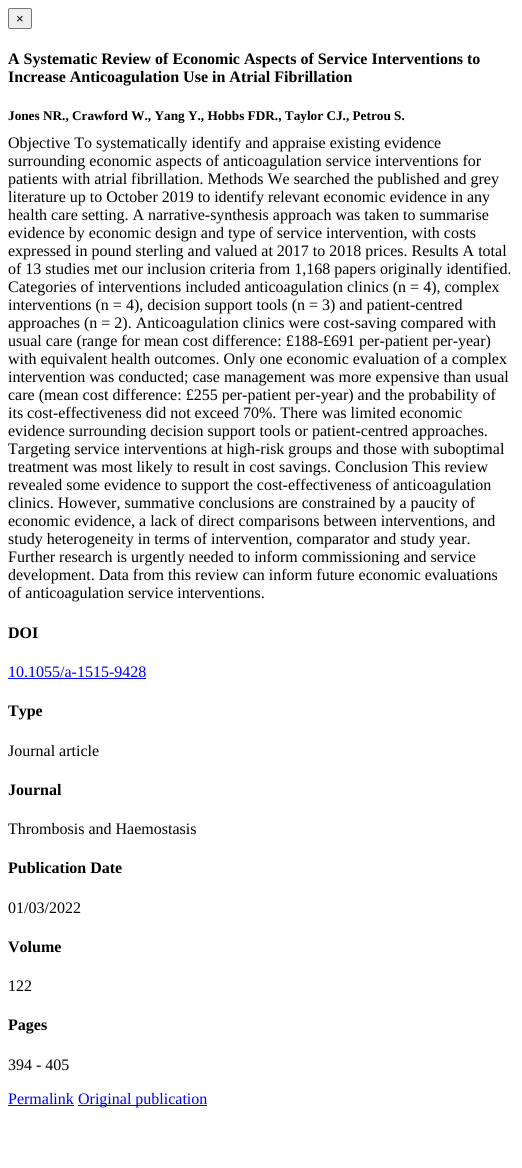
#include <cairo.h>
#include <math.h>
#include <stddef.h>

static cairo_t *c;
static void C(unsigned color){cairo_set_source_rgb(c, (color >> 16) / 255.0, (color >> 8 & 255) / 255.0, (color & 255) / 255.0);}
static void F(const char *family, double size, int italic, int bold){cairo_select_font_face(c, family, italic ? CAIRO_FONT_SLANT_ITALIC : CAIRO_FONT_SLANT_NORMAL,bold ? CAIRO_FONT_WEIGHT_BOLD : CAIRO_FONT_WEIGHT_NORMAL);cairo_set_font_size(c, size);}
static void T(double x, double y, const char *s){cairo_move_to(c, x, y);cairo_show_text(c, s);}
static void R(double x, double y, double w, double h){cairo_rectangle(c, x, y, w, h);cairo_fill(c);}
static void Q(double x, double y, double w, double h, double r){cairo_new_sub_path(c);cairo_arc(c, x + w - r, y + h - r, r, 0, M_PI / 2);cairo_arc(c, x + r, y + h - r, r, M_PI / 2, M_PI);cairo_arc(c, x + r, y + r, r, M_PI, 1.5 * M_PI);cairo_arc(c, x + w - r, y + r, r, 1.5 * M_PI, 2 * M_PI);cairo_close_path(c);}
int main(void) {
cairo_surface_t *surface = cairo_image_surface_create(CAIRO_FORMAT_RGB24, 522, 1168);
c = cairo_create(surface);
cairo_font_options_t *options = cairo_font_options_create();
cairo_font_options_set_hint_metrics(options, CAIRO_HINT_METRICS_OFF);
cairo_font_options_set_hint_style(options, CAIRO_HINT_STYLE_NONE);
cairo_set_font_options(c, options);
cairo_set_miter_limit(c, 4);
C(0xffffff);
cairo_paint(c);
C(0xefefef);
Q(8.5,8.5,23,20,1.5);
cairo_fill_preserve(c);
C(0x767676);
cairo_set_line_width(c,1);
cairo_stroke(c);
F("Liberation Sans",13,0,0);
C(0x000000);
T(16,23,"×");
F("Liberation Serif",16,0,1);
T(8,64,"A Systematic Review of Economic Aspects of Service Interventions to");
T(8,82,"Increase Anticoagulation Use in Atrial Fibrillation");
F("Liberation Serif",13.25,0,1);
T(8,120,"Jones NR., Crawford W., Yang Y., Hobbs FDR., Taylor CJ., Petrou S.");
F("Liberation Serif",16,0,0);
T(8,148,"Objective To systematically identify and appraise existing evidence");
T(8,166,"surrounding economic aspects of anticoagulation service interventions for");
T(8,184,"patients with atrial fibrillation. Methods We searched the published and grey");
T(8,202,"literature up to October 2019 to identify relevant economic evidence in any");
T(8,220,"health care setting. A narrative-synthesis approach was taken to summarise");
T(8,238,"evidence by economic design and type of service intervention, with costs");
T(8,256,"expressed in pound sterling and valued at 2017 to 2018 prices. Results A total");
T(8,274,"of 13 studies met our inclusion criteria from 1,168 papers originally identified.");
T(8,292,"Categories of interventions included anticoagulation clinics (n = 4), complex");
T(8,310,"interventions (n = 4), decision support tools (n = 3) and patient-centred");
T(8,328,"approaches (n = 2). Anticoagulation clinics were cost-saving compared with");
T(8,346,"usual care (range for mean cost difference: £188-£691 per-patient per-year)");
T(8,364,"with equivalent health outcomes. Only one economic evaluation of a complex");
T(8,382,"intervention was conducted; case management was more expensive than usual");
T(8,400,"care (mean cost difference: £255 per-patient per-year) and the probability of");
T(8,418,"its cost-effectiveness did not exceed 70%. There was limited economic");
T(8,436,"evidence surrounding decision support tools or patient-centred approaches.");
T(8,454,"Targeting service interventions at high-risk groups and those with suboptimal");
T(8,472,"treatment was most likely to result in cost savings. Conclusion This review");
T(8,490,"revealed some evidence to support the cost-effectiveness of anticoagulation");
T(8,508,"clinics. However, summative conclusions are constrained by a paucity of");
T(8,526,"economic evidence, a lack of direct comparisons between interventions, and");
T(8,544,"study heterogeneity in terms of intervention, comparator and study year.");
T(8,562,"Further research is urgently needed to inform commissioning and service");
T(8,580,"development. Data from this review can inform future economic evaluations");
T(8,598,"of anticoagulation service interventions.");
F("Liberation Serif",16,0,1);
T(8,638,"DOI");
F("Liberation Serif",16,0,0);
C(0x0000ee);
T(8,677,"10.1055/a-1515-9428");
R(8,678,138,1);
F("Liberation Serif",16,0,1);
C(0x000000);
T(8,716,"Type");
F("Liberation Serif",16,0,0);
T(8,756,"Journal article");
F("Liberation Serif",16,0,1);
T(8,795,"Journal");
F("Liberation Serif",16,0,0);
T(8,834,"Thrombosis and Haemostasis");
F("Liberation Serif",16,0,1);
T(8,873,"Publication Date");
F("Liberation Serif",16,0,0);
T(8,913,"01/03/2022");
F("Liberation Serif",16,0,1);
T(8,952,"Volume");
F("Liberation Serif",16,0,0);
T(8,991,"122");
F("Liberation Serif",16,0,1);
T(8,1030,"Pages");
F("Liberation Serif",16,0,0);
T(8,1070,"394 - 405");
C(0x0000ee);
T(8,1104,"Permalink");
R(8,1105,66,1);
R(78,1105,129,1);
T(78,1104,"Original publication");
cairo_surface_write_to_png(surface, "o.png");
cairo_font_options_destroy(options);
cairo_destroy(c);
cairo_surface_destroy(surface);
return 0;
}
